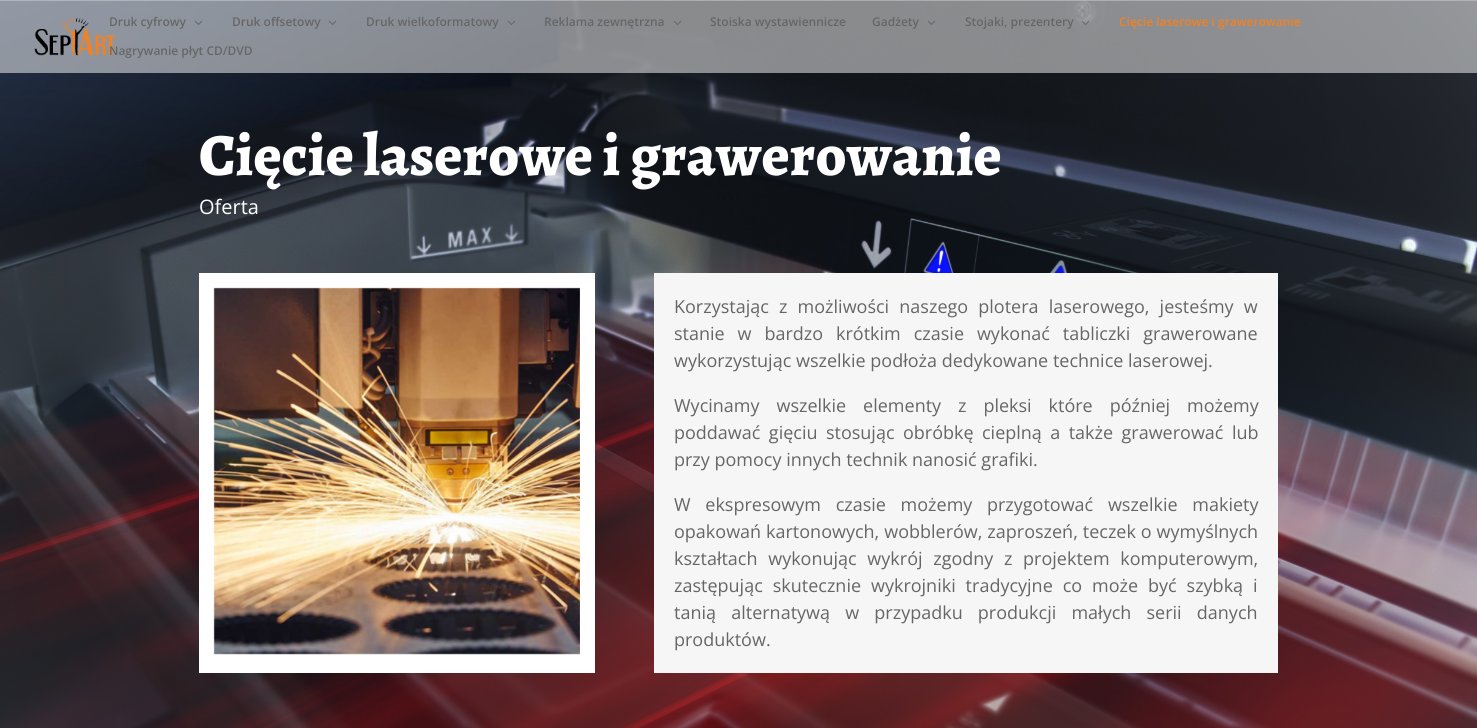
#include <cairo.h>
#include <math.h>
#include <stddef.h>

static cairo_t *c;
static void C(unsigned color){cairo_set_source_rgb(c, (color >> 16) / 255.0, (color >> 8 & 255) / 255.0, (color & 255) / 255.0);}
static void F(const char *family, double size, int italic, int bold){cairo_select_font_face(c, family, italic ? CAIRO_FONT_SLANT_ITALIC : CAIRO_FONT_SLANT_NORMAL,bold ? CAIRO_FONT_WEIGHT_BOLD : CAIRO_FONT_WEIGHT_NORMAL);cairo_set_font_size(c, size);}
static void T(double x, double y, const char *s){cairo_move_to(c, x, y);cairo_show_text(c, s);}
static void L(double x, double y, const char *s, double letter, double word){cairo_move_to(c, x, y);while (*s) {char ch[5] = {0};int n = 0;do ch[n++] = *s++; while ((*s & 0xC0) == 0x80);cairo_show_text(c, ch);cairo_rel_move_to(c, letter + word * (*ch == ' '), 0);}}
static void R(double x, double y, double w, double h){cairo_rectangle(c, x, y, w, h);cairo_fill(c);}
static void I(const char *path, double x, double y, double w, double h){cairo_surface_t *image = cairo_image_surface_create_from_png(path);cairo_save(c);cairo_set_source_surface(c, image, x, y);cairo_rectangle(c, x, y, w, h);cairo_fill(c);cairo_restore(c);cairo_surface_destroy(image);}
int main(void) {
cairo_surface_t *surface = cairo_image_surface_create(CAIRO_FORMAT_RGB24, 1477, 728);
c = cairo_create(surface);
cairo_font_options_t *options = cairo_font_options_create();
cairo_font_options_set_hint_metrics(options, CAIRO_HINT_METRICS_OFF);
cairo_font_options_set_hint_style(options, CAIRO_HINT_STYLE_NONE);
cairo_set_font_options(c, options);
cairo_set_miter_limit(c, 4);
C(0xc0c0c0);
cairo_paint(c);
I("8.png",0,0,1477,728);
cairo_set_source_rgba(c,1,1,1,0.5);
R(0,0,1477,73);
I("1.png",34,17,82,39);
F("Open Sans SemiBold",12,0,0);
C(0x666666);
T(109,26,"Druk cyfrowy");
I("2.png",194,20,9,5);
T(232,26,"Druk offsetowy");
I("3.png",328,20,9,5);
T(366,26,"Druk wielkoformatowy");
I("4.png",507,20,9,5);
T(544,26,"Reklama zewnętrzna");
I("5.png",673,20,9,5);
T(710,26,"Stoiska wystawiennicze");
T(872,26,"Gadżety");
I("6.png",927,20,9,5);
T(965,26,"Stojaki, prezentery");
I("7.png",1081,20,9,5);
C(0xf48120);
T(1119,26,"Cięcie laserowe i grawerowanie");
C(0x666666);
T(109,55,"Nagrywanie płyt CD/DVD");
F("Alegreya ExtraBold",60,0,0);
C(0xffffff);
T(199,175,"Cięcie laserowe i grawerowanie");
F("Open Sans",20,0,0);
T(199,214,"Oferta");
R(199,273,396,400);
I("9.png",213,287,367,368);
C(0xf6f6f6);
R(654,273,624,400);
F("Open Sans",18,0,0);
C(0x666666);
L(674,313,"Korzystając z możliwości naszego plotera laserowego, jesteśmy w",0,5.5);
L(674,340,"stanie w bardzo krótkim czasie wykonać tabliczki grawerowane",0,8.25);
T(674,367,"wykorzystując wszelkie podłoża dedykowane technice laserowej.");
L(674,412,"Wycinamy wszelkie elementy z pleksi które później możemy",0,12.25);
L(674,439,"poddawać gięciu stosując obróbkę cieplną a także grawerować lub",0,3.75);
T(674,466,"przy pomocy innych technik nanosić grafiki.");
L(674,511,"W ekspresowym czasie możemy przygotować wszelkie makiety",0,10);
L(674,538,"opakowań kartonowych, wobblerów, zaproszeń, teczek o wymyślnych",0,.25);
L(674,565,"kształtach wykonując wykrój zgodny z projektem komputerowym,",0,6);
L(674,592,"zastępując skutecznie wykrojniki tradycyjne co może być szybką i",0,5.25);
L(674,619,"tanią alternatywą w przypadku produkcji małych serii danych",0,10.5);
T(674,646,"produktów.");
cairo_surface_write_to_png(surface, "o.png");
cairo_font_options_destroy(options);
cairo_destroy(c);
cairo_surface_destroy(surface);
return 0;
}
